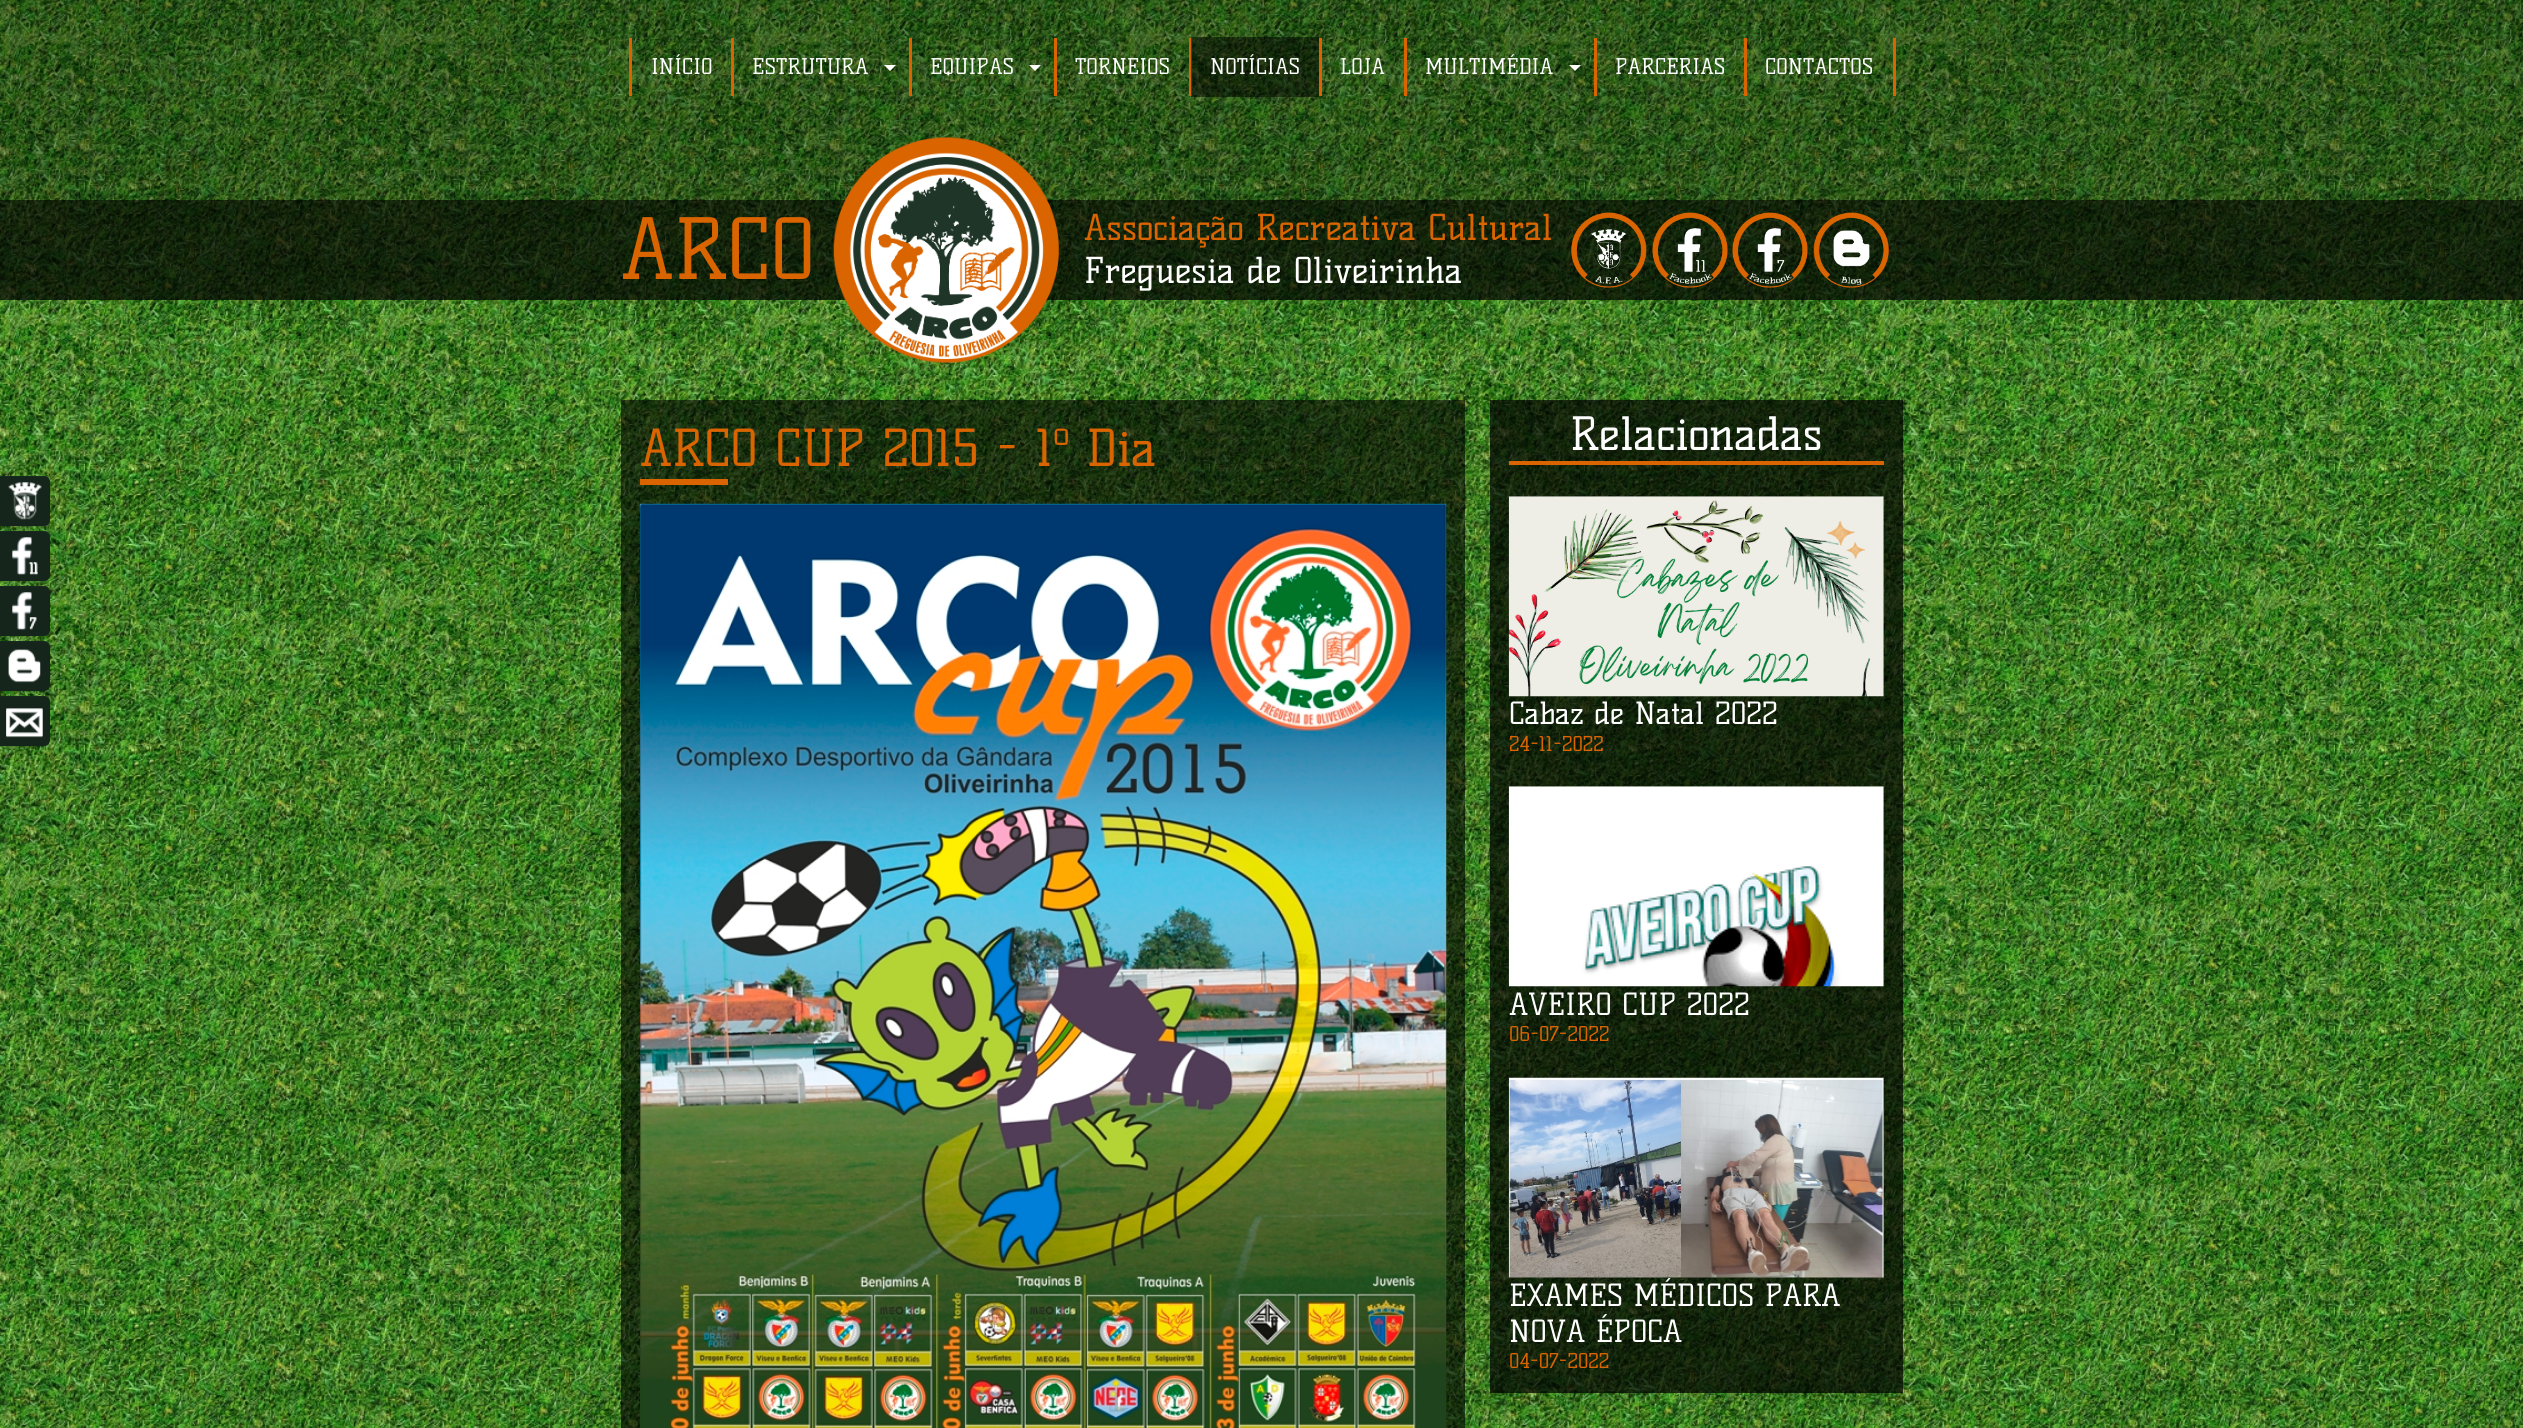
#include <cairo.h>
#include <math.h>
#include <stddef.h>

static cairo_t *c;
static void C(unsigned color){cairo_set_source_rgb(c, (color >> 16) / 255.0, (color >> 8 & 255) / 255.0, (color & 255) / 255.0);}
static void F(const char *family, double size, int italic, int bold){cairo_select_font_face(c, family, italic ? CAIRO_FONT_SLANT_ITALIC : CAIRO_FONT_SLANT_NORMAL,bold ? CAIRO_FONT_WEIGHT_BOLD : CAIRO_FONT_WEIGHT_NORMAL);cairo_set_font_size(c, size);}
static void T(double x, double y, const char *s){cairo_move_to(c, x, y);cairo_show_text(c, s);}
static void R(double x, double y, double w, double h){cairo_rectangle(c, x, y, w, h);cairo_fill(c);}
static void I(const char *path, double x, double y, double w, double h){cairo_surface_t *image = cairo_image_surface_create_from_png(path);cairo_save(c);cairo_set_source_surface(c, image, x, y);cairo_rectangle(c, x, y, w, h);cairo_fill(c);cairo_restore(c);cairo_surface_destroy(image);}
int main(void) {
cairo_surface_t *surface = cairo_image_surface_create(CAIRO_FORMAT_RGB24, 2523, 1428);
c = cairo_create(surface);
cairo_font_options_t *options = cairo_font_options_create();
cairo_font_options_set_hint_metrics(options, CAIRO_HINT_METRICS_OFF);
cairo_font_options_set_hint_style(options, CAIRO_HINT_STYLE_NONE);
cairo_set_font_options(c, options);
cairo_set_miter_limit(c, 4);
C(0xffffff);
cairo_paint(c);
I("1.png",0,0,2523,1428);
C(0x1f3528);
cairo_new_path(c);
cairo_move_to(c,-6,476);
cairo_line_to(c,44,476);
cairo_curve_to(c,47.5,476,50,478.5,50,482);
cairo_line_to(c,50,520);
cairo_curve_to(c,50,523.5,47.5,526,44,526);
cairo_line_to(c,-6,526);
cairo_close_path(c);
cairo_fill(c);
I("2.png",0,476,50,51);
I("3.png",8,482,34,38);
cairo_new_path(c);
cairo_move_to(c,-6,531);
cairo_line_to(c,44,531);
cairo_curve_to(c,47.5,531,50,533.5,50,537);
cairo_line_to(c,50,575);
cairo_curve_to(c,50,578.5,47.5,581,44,581);
cairo_line_to(c,-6,581);
cairo_close_path(c);
cairo_fill(c);
I("4.png",0,531,50,51);
I("5.png",12,537,26,38);
cairo_new_path(c);
cairo_move_to(c,-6,586);
cairo_line_to(c,44,586);
cairo_curve_to(c,47.5,586,50,588.5,50,592);
cairo_line_to(c,50,630);
cairo_curve_to(c,50,633.5,47.5,636,44,636);
cairo_line_to(c,-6,636);
cairo_close_path(c);
cairo_fill(c);
I("6.png",0,586,50,51);
I("7.png",12,592,25,38);
cairo_new_path(c);
cairo_move_to(c,-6,641);
cairo_line_to(c,44,641);
cairo_curve_to(c,47.5,641,50,643.5,50,647);
cairo_line_to(c,50,685);
cairo_curve_to(c,50,688.5,47.5,691,44,691);
cairo_line_to(c,-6,691);
cairo_close_path(c);
cairo_fill(c);
I("8.png",0,641,50,51);
I("9.png",8,649,33,34);
cairo_new_path(c);
cairo_move_to(c,-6,696);
cairo_line_to(c,44,696);
cairo_curve_to(c,47.5,696,50,698.5,50,702);
cairo_line_to(c,50,740);
cairo_curve_to(c,50,743.5,47.5,746,44,746);
cairo_line_to(c,-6,746);
cairo_close_path(c);
cairo_fill(c);
I("10.png",0,696,50,51);
I("11.png",6,708,37,30);
cairo_set_source_rgba(c,0,0,0,0.3);
R(0,0,2523,200);
C(0xda6400);
R(731,38,3,58);
R(629,38,3,58);
F("Kelly Slab",21.25,0,0);
C(0xffffff);
T(651,74,"INÍCIO");
C(0xda6400);
R(909,38,3,58);
C(0xffffff);
T(752,74,"ESTRUTURA");
cairo_new_path(c);
cairo_move_to(c,884,65);
cairo_line_to(c,896,65);
cairo_line_to(c,890,71);
cairo_close_path(c);
cairo_fill(c);
C(0xda6400);
R(1054,38,3,58);
C(0xffffff);
T(930,74,"EQUIPAS");
cairo_new_path(c);
cairo_move_to(c,1029,65);
cairo_line_to(c,1041,65);
cairo_line_to(c,1035,71);
cairo_close_path(c);
cairo_fill(c);
C(0xda6400);
R(1189,38,3,58);
C(0xffffff);
T(1075,74,"TORNEIOS");
C(0xda6400);
R(1319,38,3,58);
cairo_set_source_rgba(c,0,0,0,0.5);
R(1191,37,128,60);
C(0xffffff);
T(1210,74,"NOTÍCIAS");
C(0xda6400);
R(1404,38,3,58);
C(0xffffff);
T(1340,74,"LOJA");
C(0xda6400);
R(1594,38,3,58);
C(0xffffff);
T(1425,74,"MULTIMÉDIA");
cairo_new_path(c);
cairo_move_to(c,1569,65);
cairo_line_to(c,1581,65);
cairo_line_to(c,1575,71);
cairo_close_path(c);
cairo_fill(c);
C(0xda6400);
R(1744,38,3,58);
C(0xffffff);
T(1615,74,"PARCERIAS");
C(0xda6400);
R(1893,38,3,58);
C(0xffffff);
T(1765,74,"CONTACTOS");
cairo_set_source_rgba(c,0,0,0,0.7);
R(0,200,2523,100);
F("Kelly Slab",82.5,0,0);
C(0xda6400);
T(621,279,"ARCO");
I("12.png",833,137,226,226);
F("Kelly Slab",35,0,0);
T(1084,240,"Associação Recreativa Cultural");
C(0xffffff);
T(1084,283,"Freguesia de Oliveirinha");
I("13.png",1571,212,76,76);
I("14.png",1652,212,76,76);
I("15.png",1732,212,76,76);
I("16.png",1813,212,76,76);
cairo_set_source_rgba(c,0,0,0,0.6);
R(621,400,844,1028);
F("Kelly Slab",50,0,0);
C(0xda6400);
T(640,466,"ARCO CUP 2015 - 1º Dia");
R(640,479,88,6);
I("17.png",640,503,807,925);
cairo_set_source_rgba(c,0,0,0,0.7);
R(1490,400,413,993);
C(0xda6400);
R(1509,461,375,4);
F("Kelly Slab",45,0,0);
C(0xffffff);
T(1570,450,"Relacionadas");
I("18.png",1508,496,376,201);
F("Kelly Slab",30,0,0);
T(1509,724,"Cabaz de Natal 2022");
F("Kelly Slab",20,0,0);
C(0xda6400);
T(1509,751,"24-11-2022");
I("19.png",1508,786,376,201);
F("Kelly Slab",30,0,0);
C(0xffffff);
T(1509,1015,"AVEIRO CUP 2022");
F("Kelly Slab",20,0,0);
C(0xda6400);
T(1509,1041,"06-07-2022");
I("20.png",1508,1077,376,201);
F("Kelly Slab",30,0,0);
C(0xffffff);
T(1509,1306,"EXAMES MÉDICOS PARA");
T(1509,1342,"NOVA ÉPOCA");
F("Kelly Slab",20,0,0);
C(0xda6400);
T(1509,1368,"04-07-2022");
cairo_surface_write_to_png(surface, "o.png");
cairo_font_options_destroy(options);
cairo_destroy(c);
cairo_surface_destroy(surface);
return 0;
}
